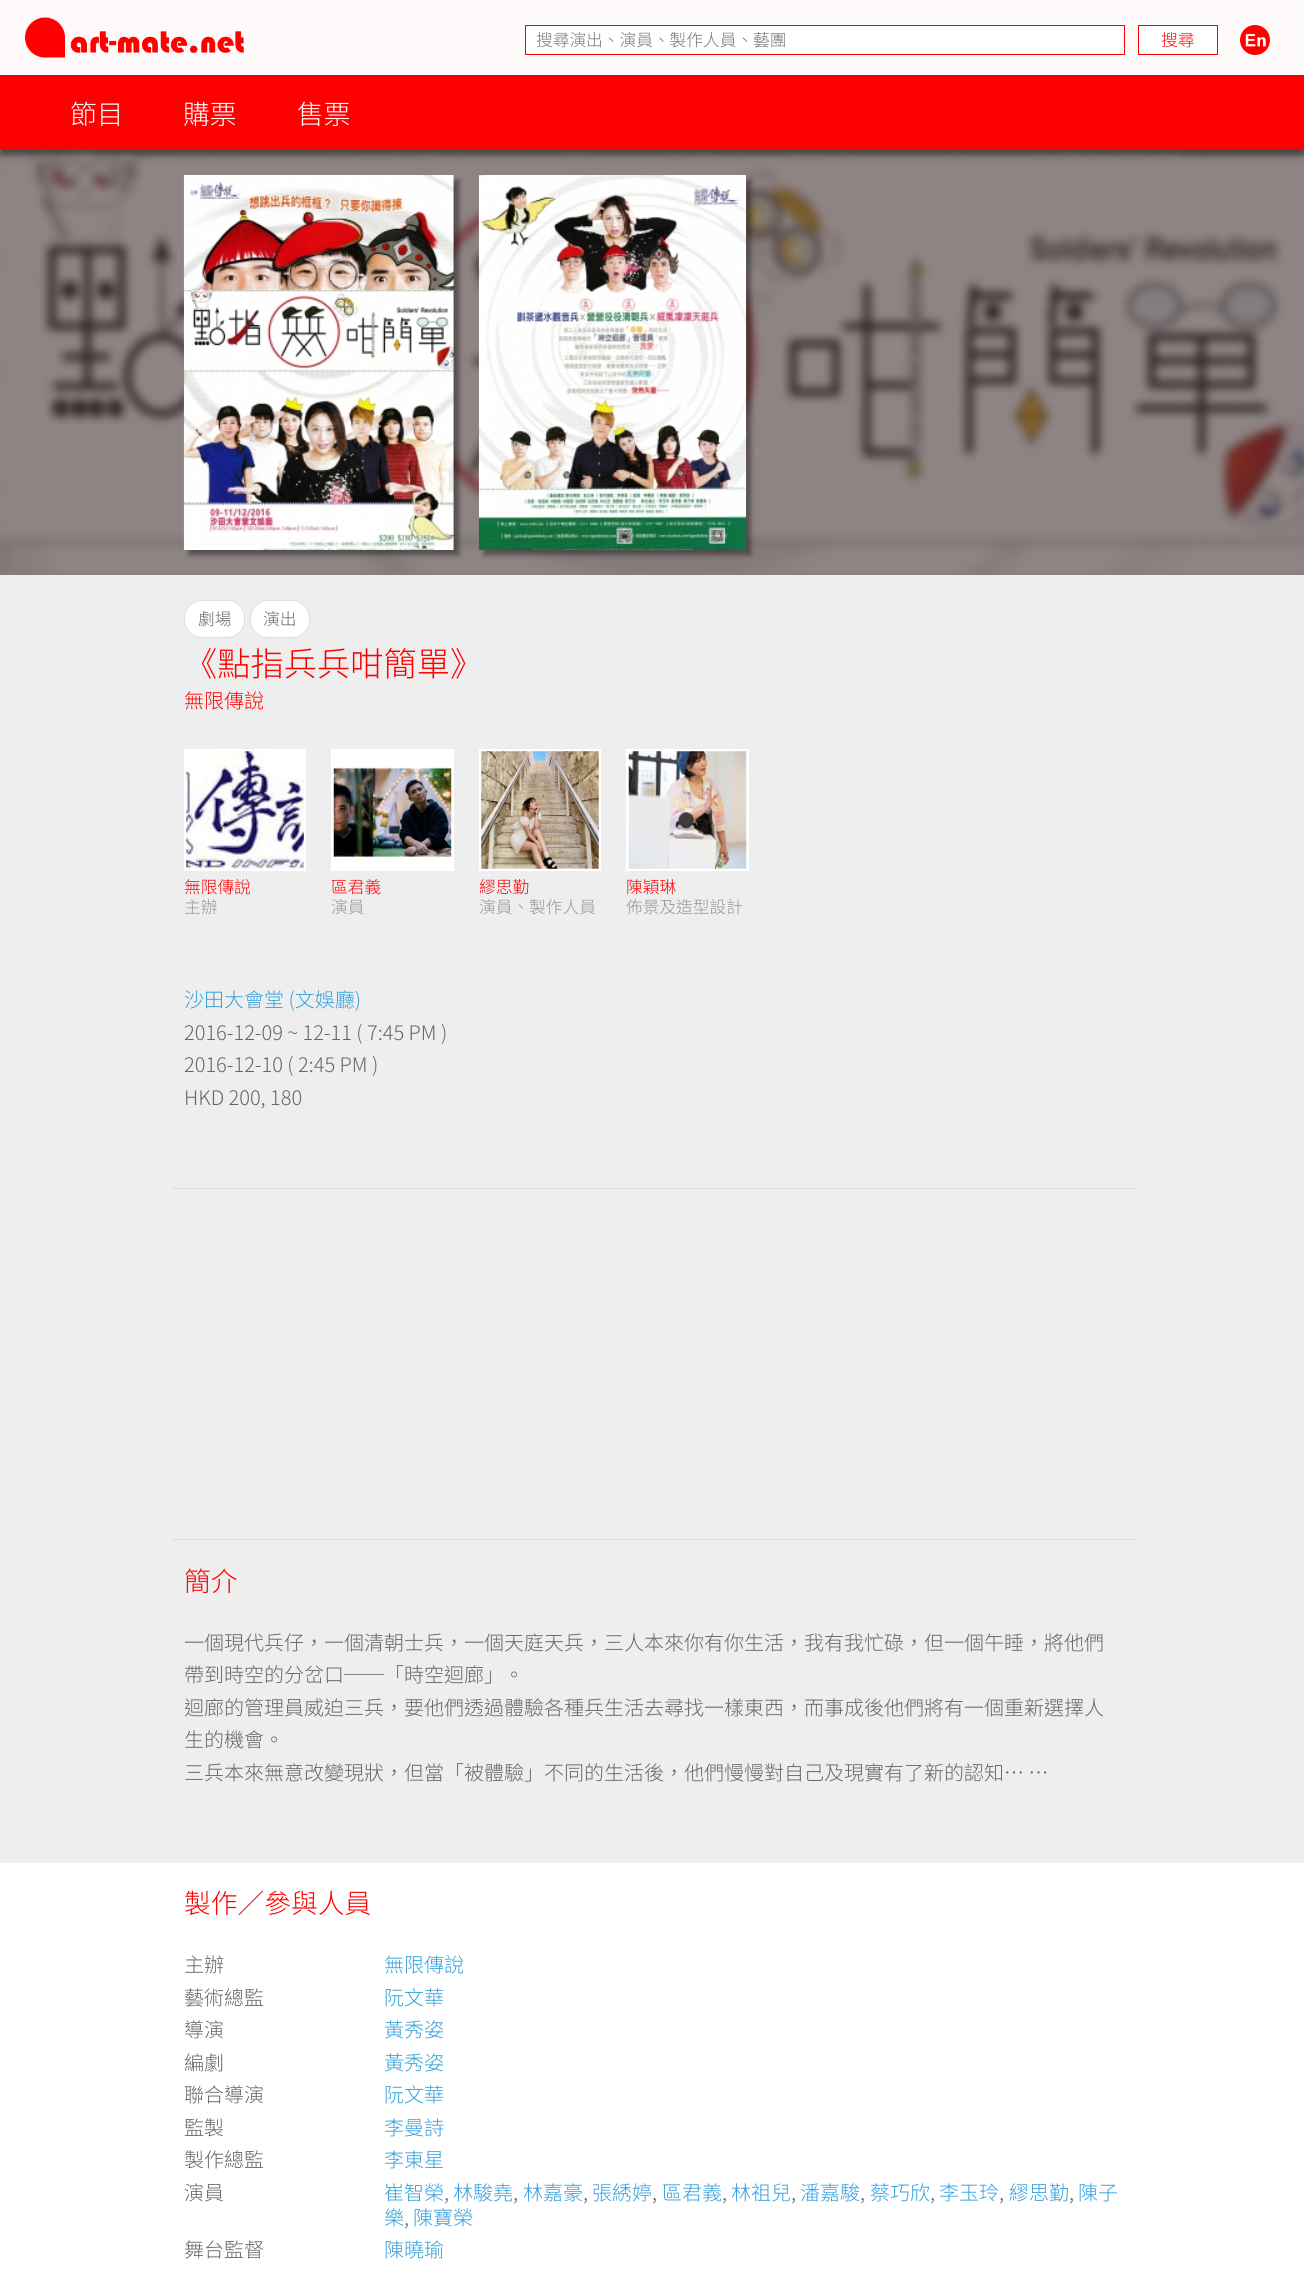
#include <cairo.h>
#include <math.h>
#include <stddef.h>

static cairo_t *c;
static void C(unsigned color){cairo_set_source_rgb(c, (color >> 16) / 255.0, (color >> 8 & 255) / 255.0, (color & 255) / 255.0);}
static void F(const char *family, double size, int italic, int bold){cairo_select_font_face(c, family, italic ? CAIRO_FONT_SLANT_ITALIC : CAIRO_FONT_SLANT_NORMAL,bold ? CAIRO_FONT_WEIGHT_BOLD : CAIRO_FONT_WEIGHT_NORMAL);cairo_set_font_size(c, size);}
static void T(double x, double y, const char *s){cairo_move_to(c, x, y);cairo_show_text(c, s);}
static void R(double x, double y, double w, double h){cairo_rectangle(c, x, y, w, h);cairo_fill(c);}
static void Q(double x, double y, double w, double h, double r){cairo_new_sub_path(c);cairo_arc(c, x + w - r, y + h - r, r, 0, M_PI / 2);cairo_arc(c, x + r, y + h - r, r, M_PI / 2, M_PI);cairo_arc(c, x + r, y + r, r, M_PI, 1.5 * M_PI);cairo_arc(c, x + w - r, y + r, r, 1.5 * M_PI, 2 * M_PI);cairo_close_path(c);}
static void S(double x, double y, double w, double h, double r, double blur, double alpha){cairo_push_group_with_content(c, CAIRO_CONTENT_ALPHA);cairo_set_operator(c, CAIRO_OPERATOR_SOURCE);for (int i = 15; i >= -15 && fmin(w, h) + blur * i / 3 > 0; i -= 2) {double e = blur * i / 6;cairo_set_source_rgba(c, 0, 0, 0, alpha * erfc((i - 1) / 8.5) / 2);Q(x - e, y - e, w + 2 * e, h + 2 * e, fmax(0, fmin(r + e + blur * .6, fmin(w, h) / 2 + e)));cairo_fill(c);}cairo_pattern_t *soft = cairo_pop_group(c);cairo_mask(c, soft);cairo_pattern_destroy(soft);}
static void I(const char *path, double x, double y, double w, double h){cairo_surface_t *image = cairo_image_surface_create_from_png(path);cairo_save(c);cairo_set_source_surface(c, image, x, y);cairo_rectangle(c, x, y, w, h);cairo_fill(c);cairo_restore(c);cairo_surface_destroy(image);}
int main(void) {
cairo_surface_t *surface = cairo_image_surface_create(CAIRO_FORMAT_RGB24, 1304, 2276);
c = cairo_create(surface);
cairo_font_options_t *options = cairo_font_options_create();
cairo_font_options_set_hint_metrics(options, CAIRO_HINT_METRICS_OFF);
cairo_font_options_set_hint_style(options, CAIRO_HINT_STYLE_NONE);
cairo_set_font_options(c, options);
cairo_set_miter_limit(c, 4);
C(0xeeeeee);
cairo_paint(c);
C(0x887e7e);
R(0,150,1304,425);
C(0xfffafa);
R(0,0,1304,75);
I("1.png",25,17,219,41);
C(0xffffff);
cairo_rectangle(c,525.5,25.5,599,29);
cairo_fill_preserve(c);
C(0xff0000);
cairo_set_line_width(c,1);
cairo_stroke(c);
F("Noto Sans HK Thin",16.7,0,0);
C(0x757575);
T(536,46,"搜尋演出、演員、製作人員、藝團");
C(0xffffff);
cairo_rectangle(c,1138.5,25.5,79,29);
cairo_fill_preserve(c);
C(0xff0000);
cairo_stroke(c);
T(1161,46,"搜尋");
I("2.png",1240,25,30,30);
I("3.png",0,150,1304,425);
C(0x000000);
S(0,80,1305,75,0,2.5,.4);
C(0xff0000);
R(0,75,1304,75);
F("Noto Sans HK Thin",26.75,0,0);
C(0xffffff);
T(70,124,"節目");
T(183,124,"購票");
T(297,124,"售票");
C(0x000000);
S(189,180,270,375,0,2.5,.4);
I("4.png",183,175,271,375);
S(484,180,267,375,0,2.5,.4);
I("5.png",478,175,269,375);
C(0xffffff);
Q(184.5,600.5,60,37,17.5);
cairo_fill_preserve(c);
C(0xdfdfdf);
cairo_stroke(c);
F("Noto Sans HK Thin",16.7,0,0);
C(0x666666);
T(198,625,"劇場");
C(0xffffff);
Q(250.5,600.5,59,37,17.5);
cairo_fill_preserve(c);
C(0xdfdfdf);
cairo_stroke(c);
C(0x666666);
T(263,625,"演出");
F("Noto Sans HK Thin",33.25,0,0);
C(0xff0000);
T(184,676,"《點指兵兵咁簡單》");
F("Noto Sans HK Thin",20,0,0);
T(184,708,"無限傳說");
C(0xffffff);
R(184,749,122,122);
I("6.png",186,751,118,118);
F("Noto Sans HK Thin",16.7,0,0);
C(0xff0000);
T(184,893,"無限傳說");
C(0x959595);
T(184,913,"主辦");
C(0xffffff);
R(331,749,123,122);
I("7.png",333,767,119,90);
C(0xff0000);
T(331,893,"區君義");
C(0x959595);
T(331,913,"演員");
C(0xffffff);
R(479,749,122,122);
I("8.png",481,751,118,118);
C(0xff0000);
T(479,893,"繆思勤");
C(0x959595);
T(479,913,"演員、製作人員");
C(0xffffff);
R(626,749,123,122);
I("9.png",628,751,119,118);
C(0xff0000);
T(626,893,"陳穎琳");
C(0x959595);
T(626,913,"佈景及造型設計");
F("Noto Sans HK Thin",20,0,0);
C(0x32a0dc);
T(184,1007,"沙田大會堂 (文娛廳)");
C(0x666666);
T(184,1040,"2016-12-09 ~ 12-11 ( 7:45 PM )");
T(184,1072,"2016-12-10 ( 2:45 PM )");
T(184,1105,"HKD 200, 180");
C(0xdddddd);
R(171,1188,963,1);
R(171,1539,963,1);
F("Noto Sans HK Thin",26.75,0,0);
C(0xff0000);
T(184,1591,"簡介");
F("Noto Sans HK Thin",20,0,0);
C(0x666666);
T(184,1650,"一個現代兵仔，一個清朝士兵，一個天庭天兵，三人本來你有你生活，我有我忙碌，但一個午睡，將他們");
T(184,1682,"帶到時空的分岔口──「時空迴廊」。");
T(184,1715,"迴廊的管理員威迫三兵，要他們透過體驗各種兵生活去尋找一樣東西，而事成後他們將有一個重新選擇人");
T(184,1747,"生的機會。");
T(184,1780,"三兵本來無意改變現狀，但當「被體驗」不同的生活後，他們慢慢對自己及現實有了新的認知⋯ ⋯");
C(0xffffff);
R(0,1863,1304,413);
F("Noto Sans HK Thin",26.75,0,0);
C(0xff0000);
T(184,1913,"製作／參與人員");
F("Noto Sans HK Thin",20,0,0);
C(0x666666);
T(184,1972,"主辦");
C(0x32a0dc);
T(384,1972,"無限傳說");
C(0x666666);
T(184,2005,"藝術總監");
C(0x32a0dc);
T(384,2005,"阮文華");
C(0x666666);
T(184,2037,"導演");
C(0x32a0dc);
T(384,2037,"黃秀姿");
C(0x666666);
T(184,2070,"編劇");
C(0x32a0dc);
T(384,2070,"黃秀姿");
C(0x666666);
T(184,2102,"聯合導演");
C(0x32a0dc);
T(384,2102,"阮文華");
C(0x666666);
T(184,2135,"監製");
C(0x32a0dc);
T(384,2135,"李曼詩");
C(0x666666);
T(184,2167,"製作總監");
C(0x32a0dc);
T(384,2167,"李東星");
C(0x666666);
T(184,2200,"演員");
C(0x32a0dc);
T(384,2200,"崔智榮");
C(0x666666);
T(444,2200,",");
C(0x32a0dc);
T(453,2200,"林駿堯");
C(0x666666);
T(513,2200,",");
C(0x32a0dc);
T(523,2200,"林嘉豪");
C(0x666666);
T(583,2200,",");
C(0x32a0dc);
T(592,2200,"張綉婷");
C(0x666666);
T(652,2200,",");
C(0x32a0dc);
T(662,2200,"區君義");
C(0x666666);
T(722,2200,",");
C(0x32a0dc);
T(731,2200,"林祖兒");
C(0x666666);
T(791,2200,",");
C(0x32a0dc);
T(800,2200,"潘嘉駿");
C(0x666666);
T(860,2200,",");
C(0x32a0dc);
T(870,2200,"蔡巧欣");
C(0x666666);
T(930,2200,",");
C(0x32a0dc);
T(939,2200,"李玉玲");
C(0x666666);
T(999,2200,",");
C(0x32a0dc);
T(1009,2200,"繆思勤");
C(0x666666);
T(1069,2200,",");
C(0x32a0dc);
T(1078,2200,"陳子");
T(384,2225,"樂");
C(0x666666);
T(404,2225,",");
C(0x32a0dc);
T(413,2225,"陳寶榮");
C(0x666666);
T(184,2257,"舞台監督");
C(0x32a0dc);
T(384,2257,"陳曉瑜");
cairo_surface_write_to_png(surface, "o.png");
cairo_font_options_destroy(options);
cairo_destroy(c);
cairo_surface_destroy(surface);
return 0;
}
